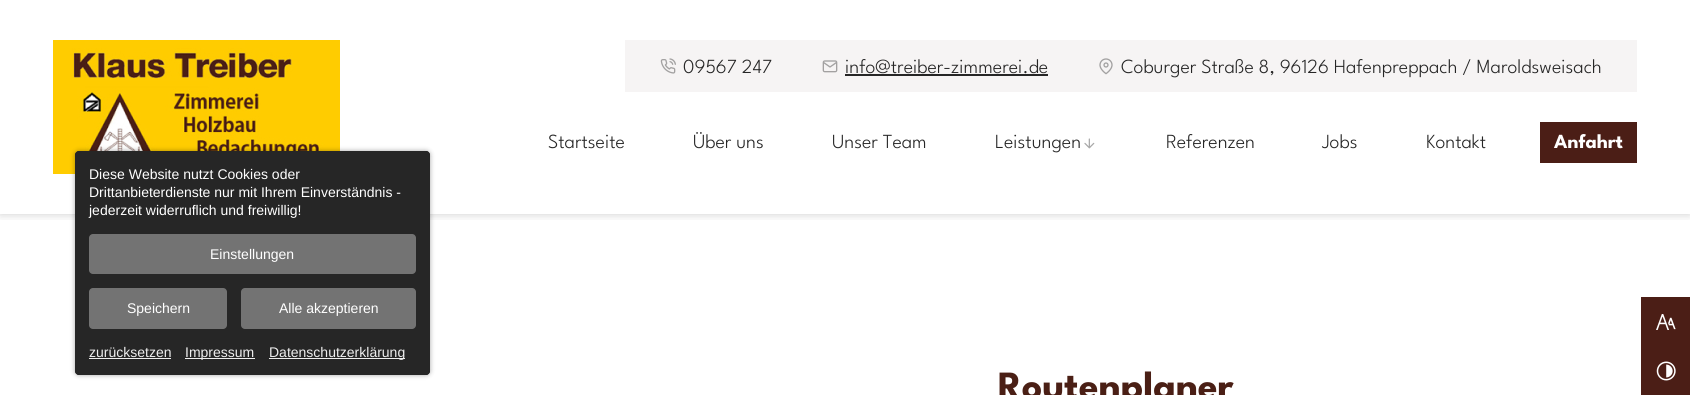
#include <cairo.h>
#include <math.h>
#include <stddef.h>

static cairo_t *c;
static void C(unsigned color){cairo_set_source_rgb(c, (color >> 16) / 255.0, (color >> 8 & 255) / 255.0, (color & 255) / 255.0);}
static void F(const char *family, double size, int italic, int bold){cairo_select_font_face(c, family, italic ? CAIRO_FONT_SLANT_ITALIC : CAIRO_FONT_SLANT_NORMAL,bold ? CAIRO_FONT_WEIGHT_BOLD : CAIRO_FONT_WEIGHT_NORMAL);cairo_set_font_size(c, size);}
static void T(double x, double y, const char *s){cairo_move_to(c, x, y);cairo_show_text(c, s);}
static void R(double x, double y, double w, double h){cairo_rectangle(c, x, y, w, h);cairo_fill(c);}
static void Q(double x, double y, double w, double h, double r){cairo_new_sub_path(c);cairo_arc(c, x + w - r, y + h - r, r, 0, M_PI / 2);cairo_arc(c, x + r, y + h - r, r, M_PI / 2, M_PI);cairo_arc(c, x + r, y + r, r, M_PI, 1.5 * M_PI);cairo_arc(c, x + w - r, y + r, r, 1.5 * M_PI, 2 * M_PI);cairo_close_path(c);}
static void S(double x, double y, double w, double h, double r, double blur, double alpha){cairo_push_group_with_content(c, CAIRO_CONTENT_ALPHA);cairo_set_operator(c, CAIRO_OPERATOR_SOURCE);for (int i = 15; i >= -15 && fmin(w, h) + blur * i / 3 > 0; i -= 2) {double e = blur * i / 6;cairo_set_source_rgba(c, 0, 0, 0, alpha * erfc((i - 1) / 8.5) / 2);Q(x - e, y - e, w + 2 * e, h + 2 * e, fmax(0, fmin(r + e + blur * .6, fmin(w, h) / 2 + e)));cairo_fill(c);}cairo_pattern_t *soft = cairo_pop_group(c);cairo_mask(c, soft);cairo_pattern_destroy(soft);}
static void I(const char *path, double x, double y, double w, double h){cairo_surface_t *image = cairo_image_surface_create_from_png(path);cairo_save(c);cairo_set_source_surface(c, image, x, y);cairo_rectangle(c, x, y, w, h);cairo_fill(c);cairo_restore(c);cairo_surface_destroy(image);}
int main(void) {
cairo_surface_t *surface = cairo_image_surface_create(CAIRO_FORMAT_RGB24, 1690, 395);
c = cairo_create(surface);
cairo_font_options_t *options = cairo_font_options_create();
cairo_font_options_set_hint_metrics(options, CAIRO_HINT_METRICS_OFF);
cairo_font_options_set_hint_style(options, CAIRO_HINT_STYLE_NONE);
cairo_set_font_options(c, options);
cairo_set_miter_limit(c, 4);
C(0xffffff);
cairo_paint(c);
cairo_save(c);
cairo_rectangle(c,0,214,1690,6);
cairo_clip(c);
C(0x000000);
S(0,0,1690,214,0,5,.2);
cairo_restore(c);
I("1.png",53,40,287,134);
C(0xf6f4f4);
R(625,40,1012,52);
I("2.png",660,58,16,16);
F("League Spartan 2 Thin",20,0,0);
C(0x262626);
T(683,73,"09567 247");
I("3.png",822,60,16,13);
T(845,73,"info@treiber-zimmerei.de");
R(845,74,203,2);
I("4.png",1099,58,14,17);
T(1121,73,"Coburger Straße 8, 96126 Hafenpreppach / Maroldsweisach");
T(548,148,"Startseite");
T(693,148,"Über uns");
T(832,148,"Unser Team");
T(995,148,"Leistungen");
I("5.png",1084,138,11,11);
T(1166,148,"Referenzen");
T(1322,148,"Jobs");
T(1426,148,"Kontakt");
C(0x4b1e16);
R(1540,122,97,41);
F("League Spartan Thin",20,0,0);
C(0xffffff);
T(1554,148,"Anfahrt");
C(0x000000);
S(75,151,355,224,4,2.5,.35);
C(0x262626);
Q(75,151,355,224,4);
cairo_fill(c);
cairo_new_path(c);
cairo_move_to(c,79,151);
cairo_line_to(c,426,151);
cairo_curve_to(c,428,151,430,153,430,155);
cairo_line_to(c,430,288);
cairo_line_to(c,75,288);
cairo_line_to(c,75,155);
cairo_curve_to(c,75,153,77,151,79,151);
cairo_close_path(c);
cairo_fill(c);
F("Liberation Sans",14,0,0);
C(0xffffff);
T(89,179,"Diese Website nutzt Cookies oder");
T(89,197,"Drittanbieterdienste nur mit Ihrem Einverständnis -");
T(89,215,"jederzeit widerruflich und freiwillig!");
C(0x737373);
Q(89,234,327,40,4);
cairo_fill(c);
C(0xffffff);
T(210,259,"Einstellungen");
C(0x737373);
Q(89,288,138,41,4);
cairo_fill(c);
C(0xffffff);
T(127,313,"Speichern");
C(0x737373);
Q(241,288,175,41,4);
cairo_fill(c);
C(0xffffff);
T(279,313,"Alle akzeptieren");
C(0x262626);
cairo_new_path(c);
cairo_move_to(c,75,329);
cairo_line_to(c,430,329);
cairo_line_to(c,430,371);
cairo_curve_to(c,430,373,428,375,426,375);
cairo_line_to(c,79,375);
cairo_curve_to(c,77,375,75,373,75,371);
cairo_close_path(c);
cairo_fill(c);
C(0xeeeeee);
T(89,357,"zurücksetzen");
R(89,358,82,1);
R(185,358,70,1);
T(185,357,"Impressum");
R(269,358,136,1);
T(269,357,"Datenschutzerklärung");
F("League Spartan Thin",40,0,0);
C(0x4a1f15);
T(998,399,"Routenplaner");
C(0x4b1e16);
R(1641,297,49,98);
I("6.png",1656,314,20,16);
I("7.png",1656,361,20,20);
cairo_surface_write_to_png(surface, "o.png");
cairo_font_options_destroy(options);
cairo_destroy(c);
cairo_surface_destroy(surface);
return 0;
}
